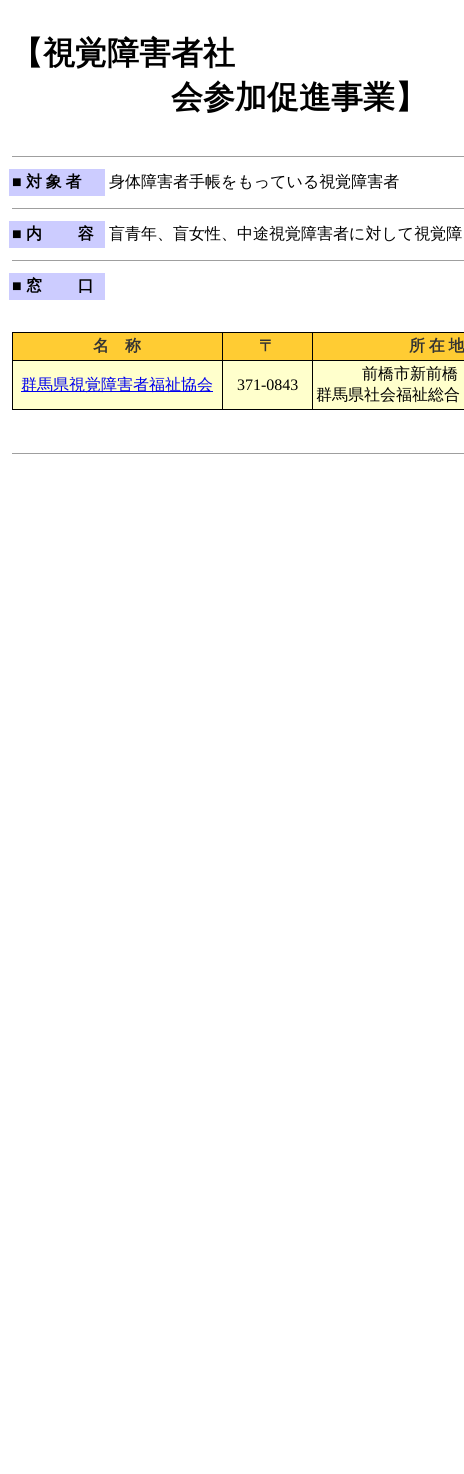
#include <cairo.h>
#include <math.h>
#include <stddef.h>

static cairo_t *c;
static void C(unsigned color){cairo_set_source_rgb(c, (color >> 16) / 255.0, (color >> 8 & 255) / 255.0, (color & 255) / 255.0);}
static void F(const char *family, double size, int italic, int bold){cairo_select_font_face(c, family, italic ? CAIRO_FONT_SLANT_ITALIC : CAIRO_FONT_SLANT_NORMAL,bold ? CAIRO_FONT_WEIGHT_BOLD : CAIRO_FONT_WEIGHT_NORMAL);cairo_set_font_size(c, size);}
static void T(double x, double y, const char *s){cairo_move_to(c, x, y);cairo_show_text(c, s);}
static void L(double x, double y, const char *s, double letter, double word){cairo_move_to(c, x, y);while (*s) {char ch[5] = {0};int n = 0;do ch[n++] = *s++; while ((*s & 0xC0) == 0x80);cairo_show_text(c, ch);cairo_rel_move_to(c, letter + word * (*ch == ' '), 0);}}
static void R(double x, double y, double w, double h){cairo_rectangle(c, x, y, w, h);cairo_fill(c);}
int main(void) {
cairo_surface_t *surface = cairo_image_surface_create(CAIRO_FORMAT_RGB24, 464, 1474);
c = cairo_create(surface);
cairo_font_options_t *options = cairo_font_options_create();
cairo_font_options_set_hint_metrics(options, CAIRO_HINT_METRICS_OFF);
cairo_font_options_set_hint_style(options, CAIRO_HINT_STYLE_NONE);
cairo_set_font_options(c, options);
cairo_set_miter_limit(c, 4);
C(0xffffff);
cairo_paint(c);
F("WenQuanYi Zen Hei",32,0,1);
C(0x000000);
T(11,64,"【視覚障害者社");
T(171,108,"会参加促進事業】");
C(0x9f9f9f);
R(12,156,452,1);
C(0xccccff);
R(9,169,96,27);
F("Liberation Serif",16,0,0);
C(0x000000);
T(12,187,"■");
F("WenQuanYi Zen Hei",16,0,1);
L(26,187,"対 象 者",0,-1);
F("WenQuanYi Zen Hei Medium",16,0,0);
T(109,187,"身体障害者手帳をもっている視覚障害者");
C(0x9f9f9f);
R(12,208,452,1);
C(0xccccff);
R(9,221,96,27);
F("Liberation Serif",16,0,0);
C(0x000000);
T(12,239,"■");
F("WenQuanYi Zen Hei",16,0,1);
L(26,239,"内 　　容",0,-1);
F("WenQuanYi Zen Hei Medium",16,0,0);
T(109,239,"盲青年、盲女性、中途視覚障害者に対して視覚障");
C(0x9f9f9f);
R(12,260,452,1);
C(0xccccff);
R(9,273,96,27);
F("Liberation Serif",16,0,0);
C(0x000000);
T(12,291,"■");
F("WenQuanYi Zen Hei",16,0,1);
L(26,291,"窓 　　口",0,-1);
R(12,332,452,78);
C(0xffcc33);
R(13,333,209,27);
C(0x333333);
T(93,351,"名　称");
C(0xffcc33);
R(223,333,89,27);
C(0x333333);
T(259,351,"〒");
C(0xffcc33);
R(313,333,151,27);
C(0x333333);
L(409,351,"所 在 地",0,-1);
C(0xffffcc);
R(13,361,209,48);
C(0x0000ee);
R(21,391,192,1);
F("WenQuanYi Zen Hei Medium",16,0,0);
T(21,390,"群馬県視覚障害者福祉協会");
C(0xffffcc);
R(223,361,89,48);
F("Liberation Serif",16,0,0);
C(0x000000);
T(237,390,"371-0843");
C(0xffffcc);
R(313,361,151,48);
F("WenQuanYi Zen Hei Medium",16,0,0);
C(0x000000);
T(362,379,"前橋市新前橋");
T(316,400,"群馬県社会福祉総合");
C(0x9f9f9f);
R(12,453,452,1);
cairo_surface_write_to_png(surface, "o.png");
cairo_font_options_destroy(options);
cairo_destroy(c);
cairo_surface_destroy(surface);
return 0;
}
